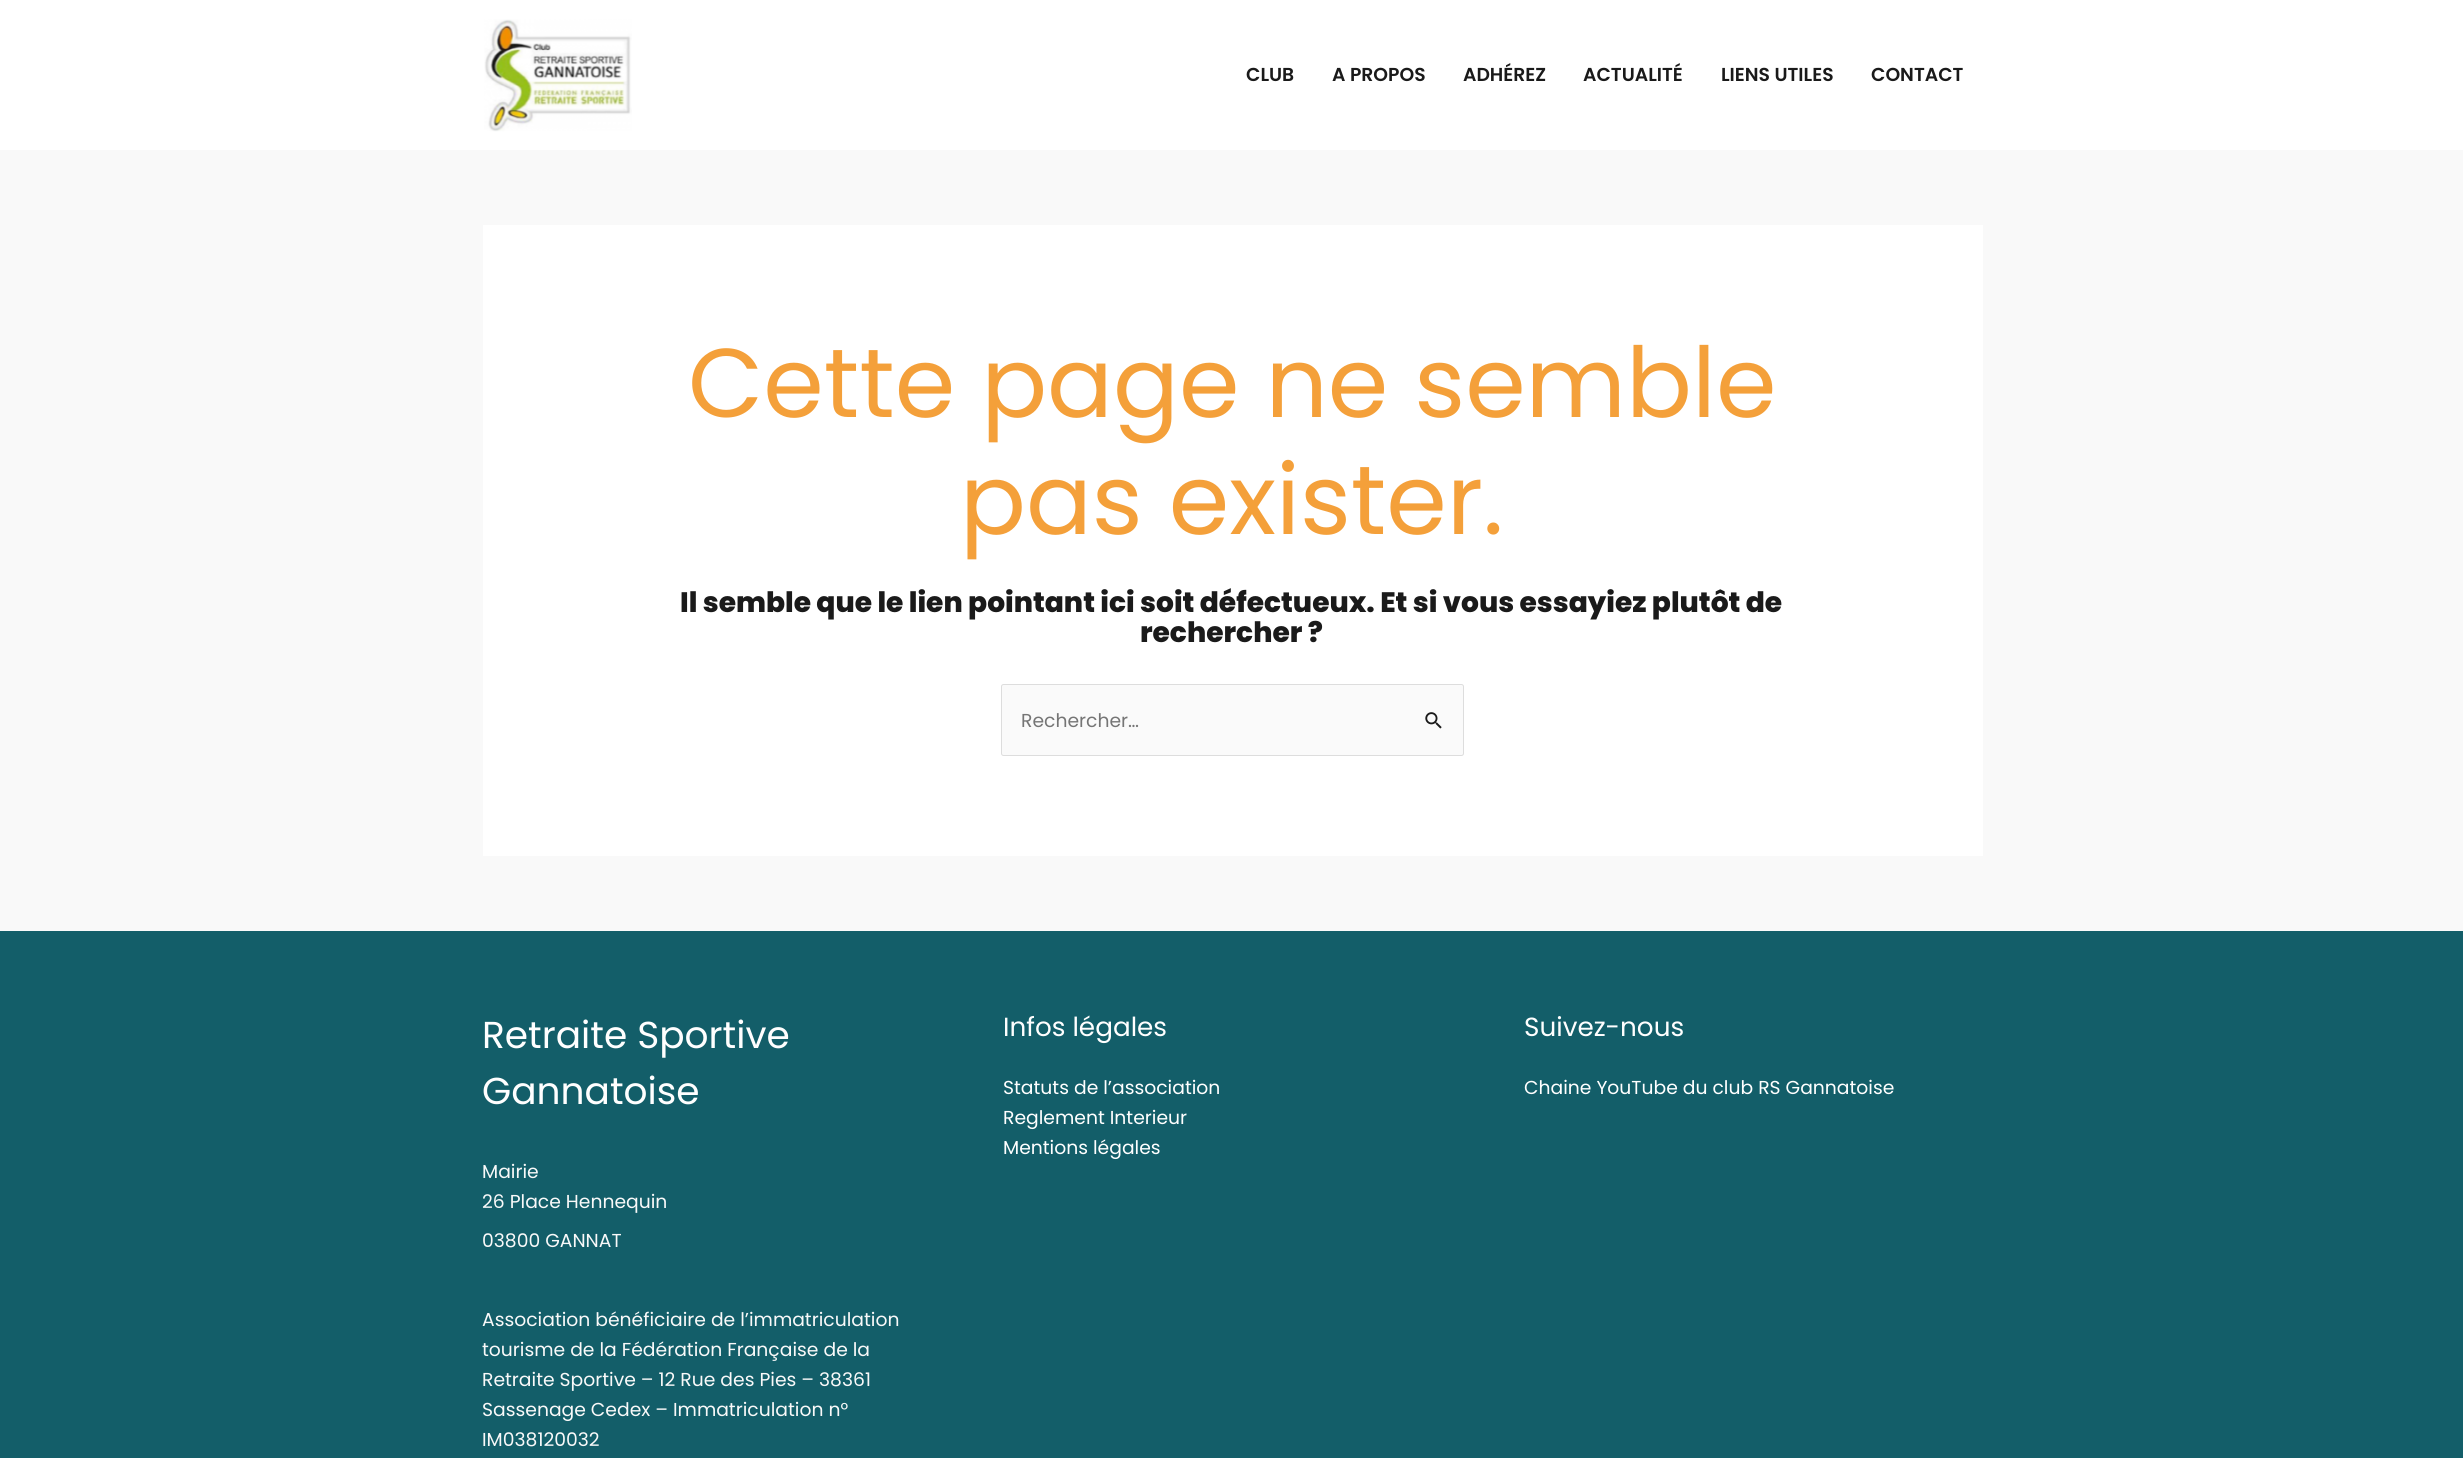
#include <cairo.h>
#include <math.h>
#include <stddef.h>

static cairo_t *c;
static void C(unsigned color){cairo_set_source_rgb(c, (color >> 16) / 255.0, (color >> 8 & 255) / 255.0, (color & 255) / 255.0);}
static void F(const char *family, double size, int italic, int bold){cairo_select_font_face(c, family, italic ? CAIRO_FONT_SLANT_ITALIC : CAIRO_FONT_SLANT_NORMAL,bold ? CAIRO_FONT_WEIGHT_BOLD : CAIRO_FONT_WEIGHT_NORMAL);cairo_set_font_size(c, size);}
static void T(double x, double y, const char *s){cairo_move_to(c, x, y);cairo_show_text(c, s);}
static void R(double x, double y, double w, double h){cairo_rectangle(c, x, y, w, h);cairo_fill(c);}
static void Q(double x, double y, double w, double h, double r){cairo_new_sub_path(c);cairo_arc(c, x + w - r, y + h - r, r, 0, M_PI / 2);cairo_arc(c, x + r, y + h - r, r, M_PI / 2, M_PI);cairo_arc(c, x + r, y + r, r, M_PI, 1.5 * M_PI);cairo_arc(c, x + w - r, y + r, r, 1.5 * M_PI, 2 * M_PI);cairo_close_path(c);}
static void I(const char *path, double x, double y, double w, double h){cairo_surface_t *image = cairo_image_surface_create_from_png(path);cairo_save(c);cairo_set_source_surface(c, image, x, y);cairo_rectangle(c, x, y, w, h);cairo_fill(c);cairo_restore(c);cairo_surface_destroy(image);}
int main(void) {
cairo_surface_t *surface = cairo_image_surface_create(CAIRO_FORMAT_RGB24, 2463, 1458);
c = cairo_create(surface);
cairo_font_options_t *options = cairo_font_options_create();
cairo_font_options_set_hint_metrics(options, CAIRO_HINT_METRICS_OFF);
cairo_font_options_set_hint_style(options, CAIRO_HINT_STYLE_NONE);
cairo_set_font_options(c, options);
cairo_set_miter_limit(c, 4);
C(0xf9f9f9);
cairo_paint(c);
C(0xffffff);
R(0,0,2463,150);
I("1.png",484,19,148,113);
F("Poppins SemiBold",18.75,0,0);
C(0x1a1a1a);
T(1246,81,"CLUB");
T(1332,81,"A PROPOS");
T(1463,81,"ADHÉREZ");
T(1583,81,"ACTUALITÉ");
T(1721,81,"LIENS UTILES");
T(1871,81,"CONTACT");
C(0xffffff);
R(483,225,1500,631);
F("Poppins",97.5,0,0);
C(0xf4a03a);
T(688,417,"Cette page ne semble");
T(960,534,"pas exister.");
F("Poppins ExtraBold",28.1,0,0);
C(0x1a1a1a);
T(680,612,"Il semble que le lien pointant ici soit défectueux. Et si vous essayiez plutôt de");
T(1140,642,"rechercher ?");
C(0xfafafa);
Q(1001.5,684.5,462,71,2);
cairo_fill_preserve(c);
C(0xdddddd);
cairo_set_line_width(c,1);
cairo_stroke(c);
F("Poppins",18.75,0,0);
C(0x757575);
T(1021,727,"Rechercher…");
I("2.png",1425,712,17,17);
C(0x135e69);
R(0,931,2463,527);
F("Poppins",37.5,0,0);
C(0xffffff);
T(482,1048,"Retraite Sportive");
T(482,1104,"Gannatoise");
F("Poppins",18.75,0,0);
C(0xf9f9f9);
T(482,1178,"Mairie");
T(482,1208,"26 Place Hennequin");
T(482,1247,"03800 GANNAT");
T(482,1326,"Association bénéficiaire de l’immatriculation");
T(482,1356,"tourisme de la Fédération Française de la");
T(482,1386,"Retraite Sportive – 12 Rue des Pies – 38361");
T(482,1416,"Sassenage Cedex – Immatriculation n°");
T(482,1446,"IM038120032");
F("Poppins",26.25,0,0);
C(0xffffff);
T(1003,1036,"Infos légales");
F("Poppins",18.75,0,0);
T(1003,1094,"Statuts de l’association");
T(1003,1124,"Reglement Interieur");
T(1003,1154,"Mentions légales");
F("Poppins",26.25,0,0);
T(1524,1036,"Suivez-nous");
F("Poppins",18.75,0,0);
T(1524,1094,"Chaine YouTube du club RS Gannatoise");
cairo_surface_write_to_png(surface, "o.png");
cairo_font_options_destroy(options);
cairo_destroy(c);
cairo_surface_destroy(surface);
return 0;
}
